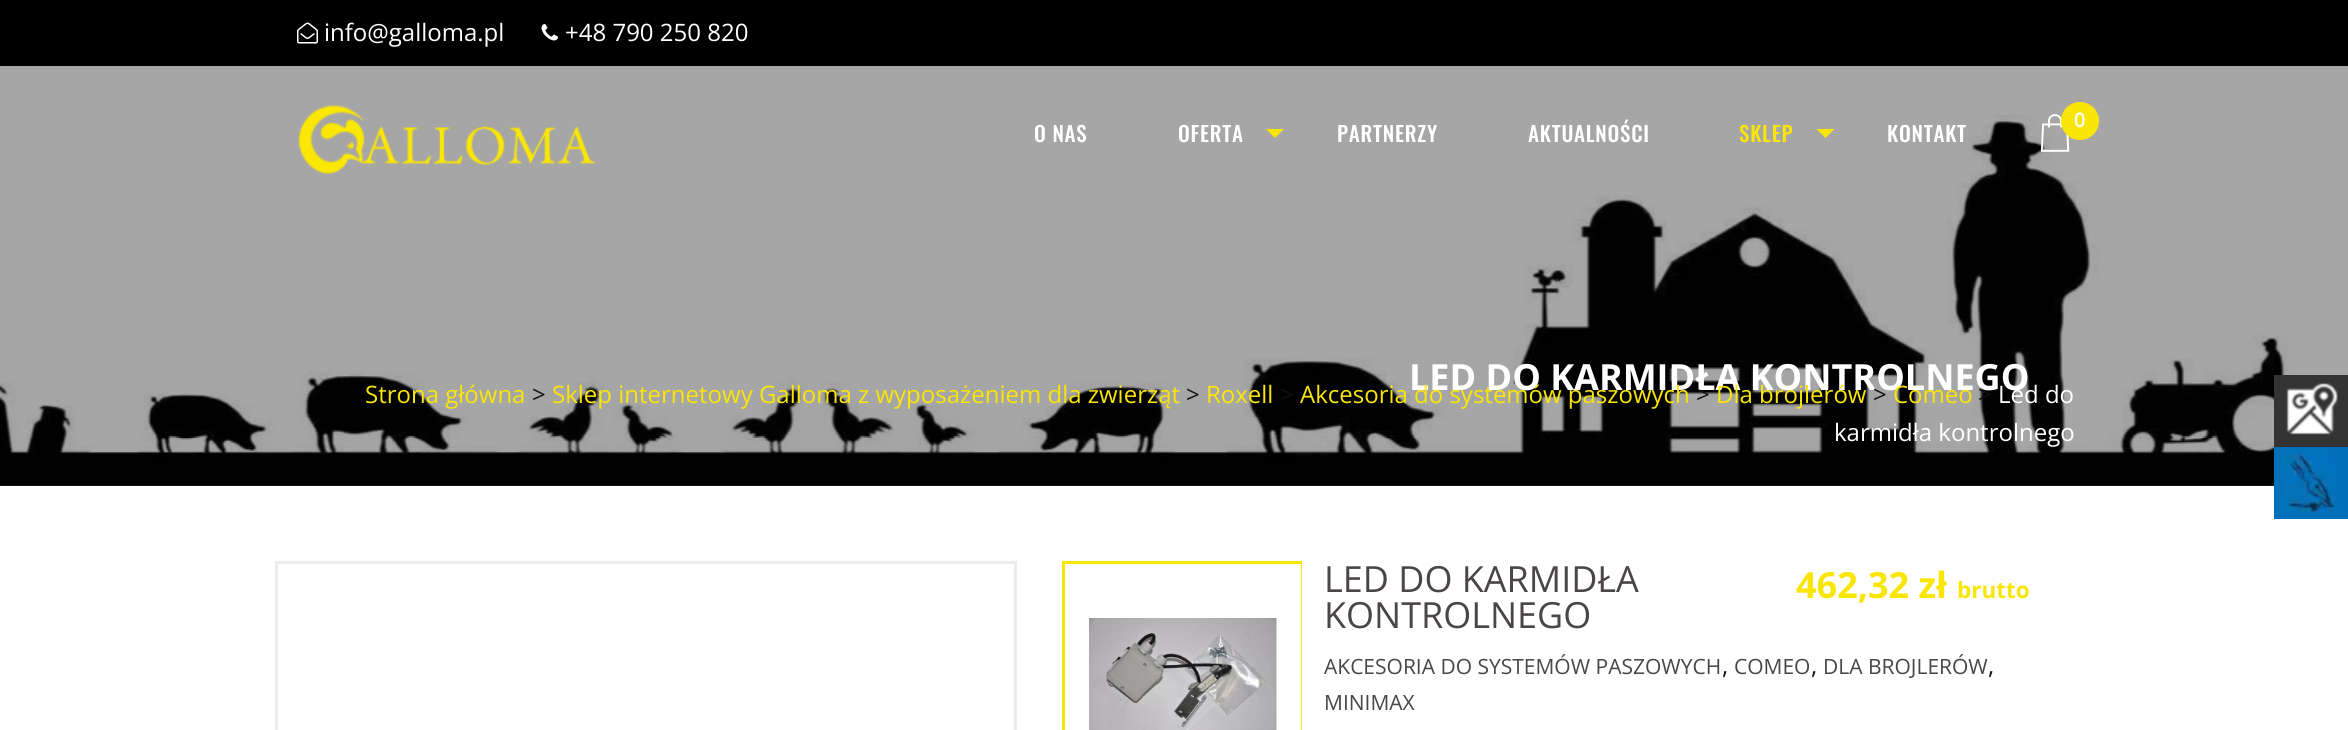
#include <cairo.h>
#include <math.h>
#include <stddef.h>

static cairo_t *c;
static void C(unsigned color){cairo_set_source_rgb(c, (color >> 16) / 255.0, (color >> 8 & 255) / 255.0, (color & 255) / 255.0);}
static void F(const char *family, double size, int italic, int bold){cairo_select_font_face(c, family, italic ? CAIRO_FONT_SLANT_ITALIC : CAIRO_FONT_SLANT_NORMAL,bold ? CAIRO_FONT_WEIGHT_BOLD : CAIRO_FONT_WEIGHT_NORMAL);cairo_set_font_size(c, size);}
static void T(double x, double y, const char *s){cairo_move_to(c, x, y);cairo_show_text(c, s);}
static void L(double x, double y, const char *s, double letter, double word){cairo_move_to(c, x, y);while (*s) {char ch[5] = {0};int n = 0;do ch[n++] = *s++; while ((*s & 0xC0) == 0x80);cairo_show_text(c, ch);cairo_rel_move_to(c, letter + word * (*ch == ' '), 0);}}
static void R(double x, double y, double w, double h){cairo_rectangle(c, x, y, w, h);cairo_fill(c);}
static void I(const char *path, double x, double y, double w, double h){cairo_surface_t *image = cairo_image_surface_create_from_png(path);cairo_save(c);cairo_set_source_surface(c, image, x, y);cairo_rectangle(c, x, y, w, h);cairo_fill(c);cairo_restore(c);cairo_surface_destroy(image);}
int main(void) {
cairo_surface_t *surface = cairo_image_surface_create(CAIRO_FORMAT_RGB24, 2348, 730);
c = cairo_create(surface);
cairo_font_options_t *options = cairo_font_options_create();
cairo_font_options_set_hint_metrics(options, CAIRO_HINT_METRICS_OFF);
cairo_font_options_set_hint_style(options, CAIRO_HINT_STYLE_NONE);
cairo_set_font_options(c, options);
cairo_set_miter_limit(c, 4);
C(0xffffff);
cairo_paint(c);
C(0xa6a6a6);
R(0,66,2348,420);
C(0x000000);
R(0,0,2348,66);
I("1.png",297,22,21,22);
F("Open Sans",24,0,0);
C(0xffffff);
T(324,41,"info@galloma.pl");
I("2.png",541,24,17,17);
T(565,41,"+48 790 250 820");
I("5.png",0,113,2348,373);
I("3.png",298,104,298,70);
F("Oswald Medium",21,0,0);
L(1034,142,"O NAS",.75,0);
L(1178,142,"OFERTA",.75,0);
C(0xfae605);
cairo_new_path(c);
cairo_move_to(c,1266,129);
cairo_line_to(c,1284,129);
cairo_line_to(c,1275,138);
cairo_close_path(c);
cairo_fill(c);
C(0xffffff);
L(1337,142,"PARTNERZY",.75,0);
L(1528,142,"AKTUALNOŚCI",.75,0);
C(0xfae605);
L(1739,142,"SKLEP",.75,0);
cairo_new_path(c);
cairo_move_to(c,1816.5,129);
cairo_line_to(c,1834.5,129);
cairo_line_to(c,1825.5,138);
cairo_close_path(c);
cairo_fill(c);
C(0xffffff);
L(1887,142,"KONTAKT",.75,0);
I("4.png",2040,114,30,38);
C(0xfae605);
cairo_arc(c,2080,121,19,0,2 * M_PI);
cairo_fill(c);
F("Open Sans SemiBold",20,0,0);
C(0xffffff);
T(2074,127,"0");
F("Open Sans",36,0,1);
T(1409,390,"LED DO KARMIDŁA KONTROLNEGO");
F("Open Sans",24,0,0);
C(0xfae605);
T(365,403,"Strona główna");
C(0x111111);
T(532,403,">");
C(0xfae605);
T(552,403,"Sklep internetowy Galloma z wyposażeniem dla zwierząt");
C(0x111111);
T(1186,403,">");
C(0xfae605);
T(1206,403,"Roxell");
C(0x111111);
T(1280,403,">");
C(0xfae605);
T(1300,403,"Akcesoria do systemów paszowych");
C(0x111111);
T(1696,403,">");
C(0xfae605);
T(1716,403,"Dla brojlerów");
C(0x111111);
T(1873,403,">");
C(0xfae605);
T(1893,403,"Comeo");
C(0x111111);
T(1978,403,">");
C(0xffffff);
T(1998,403,"Led do");
T(1834,441,"karmidła kontrolnego");
cairo_rectangle(c,276.5,562.5,739,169);
C(0xebebeb);
cairo_set_line_width(c,3);
cairo_stroke(c);
cairo_save(c);
cairo_rectangle(c,1062,561,240,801);
cairo_clip(c);
cairo_rectangle(c,1063.5,562.5,239,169);
C(0xfae605);
cairo_stroke(c);
cairo_restore(c);
I("6.png",1089,618,188,112);
F("Open Sans",36,0,0);
C(0x4a4645);
T(1324,592,"LED DO KARMIDŁA");
T(1324,628,"KONTROLNEGO");
F("Open Sans",36,0,1);
C(0xfae605);
T(1796,598,"462,32 zł");
F("Open Sans",22.5,0,1);
T(1957,598,"brutto");
F("Open Sans",21,0,0);
C(0x4a4645);
T(1324,674,"AKCESORIA DO SYSTEMÓW PASZOWYCH");
F("Open Sans",24,0,0);
C(0x111111);
T(1722,674,",");
F("Open Sans",21,0,0);
C(0x4a4645);
T(1734,674,"COMEO");
F("Open Sans",24,0,0);
C(0x111111);
T(1811,674,",");
F("Open Sans",21,0,0);
C(0x4a4645);
T(1823,674,"DLA BROJLERÓW");
F("Open Sans",24,0,0);
C(0x111111);
T(1988,674,",");
F("Open Sans",21,0,0);
C(0x4a4645);
T(1324,710,"MINIMAX");
C(0x333333);
R(2274,375,74,72);
I("7.png",2286,383,52,52);
C(0x0171bb);
R(2274,447,74,72);
I("8.png",2281,454,56,58);
cairo_surface_write_to_png(surface, "o.png");
cairo_font_options_destroy(options);
cairo_destroy(c);
cairo_surface_destroy(surface);
return 0;
}
